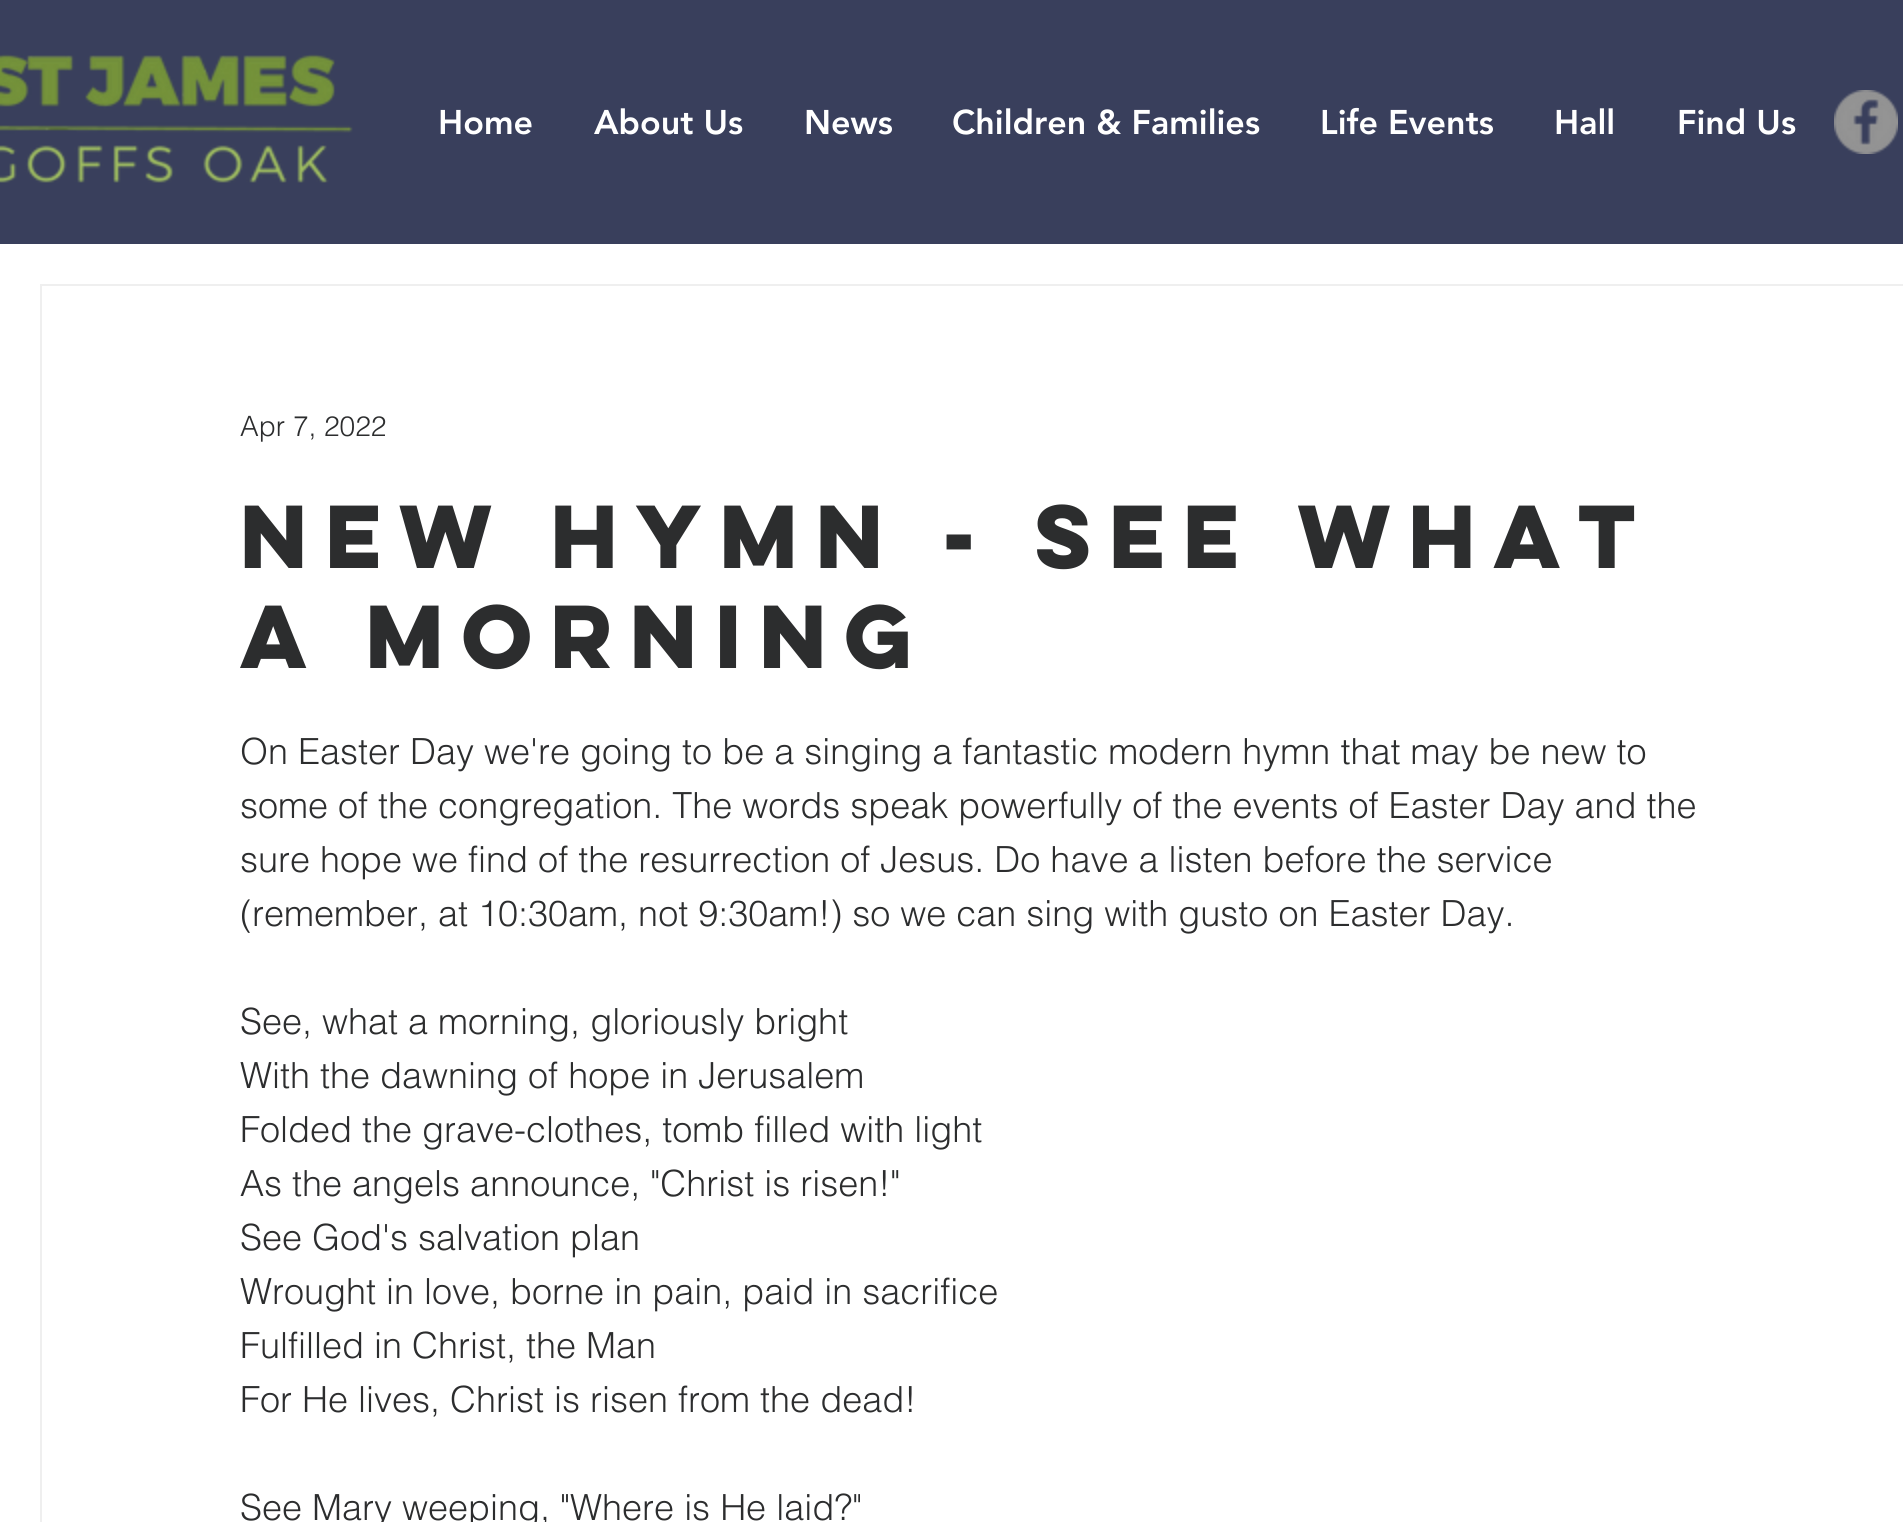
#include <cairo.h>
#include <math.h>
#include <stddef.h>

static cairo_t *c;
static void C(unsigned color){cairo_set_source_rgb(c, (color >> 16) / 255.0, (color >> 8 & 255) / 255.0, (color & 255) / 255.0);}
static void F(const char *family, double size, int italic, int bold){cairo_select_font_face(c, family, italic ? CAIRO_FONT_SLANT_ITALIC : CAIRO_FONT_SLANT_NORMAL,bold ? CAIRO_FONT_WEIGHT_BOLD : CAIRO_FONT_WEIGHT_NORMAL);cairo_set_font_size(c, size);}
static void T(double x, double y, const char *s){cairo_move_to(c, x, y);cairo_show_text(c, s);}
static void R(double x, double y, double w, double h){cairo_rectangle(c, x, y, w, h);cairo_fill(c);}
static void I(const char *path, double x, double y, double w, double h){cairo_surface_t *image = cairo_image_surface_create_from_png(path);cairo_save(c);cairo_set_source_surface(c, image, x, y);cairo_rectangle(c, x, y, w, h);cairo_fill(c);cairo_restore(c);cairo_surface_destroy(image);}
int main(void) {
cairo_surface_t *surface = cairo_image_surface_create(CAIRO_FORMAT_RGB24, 1903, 1522);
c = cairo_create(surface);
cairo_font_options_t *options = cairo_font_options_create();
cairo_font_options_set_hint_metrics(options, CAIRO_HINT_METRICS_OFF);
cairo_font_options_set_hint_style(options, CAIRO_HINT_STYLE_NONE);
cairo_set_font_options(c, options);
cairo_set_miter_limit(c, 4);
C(0xffffff);
cairo_paint(c);
C(0x393f5c);
R(0,0,1903,244);
I("1.png",0,54,353,129);
F("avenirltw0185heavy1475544 Black",34,0,0);
C(0xffffff);
T(438,134,"Home");
T(594,134,"About Us");
T(804,134,"News");
T(952,134,"Children & Families");
T(1320,134,"Life Events");
T(1554,134,"Hall");
T(1677,134,"Find Us");
I("2.png",1834,90,64,64);
cairo_rectangle(c,41,285,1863,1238);
C(0xefefef);
cairo_stroke(c);
F("helvetica Light",28,0,0);
C(0x2c2d2e);
T(240,436,"Apr 7, 2022");
F("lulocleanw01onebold",80,0,1);
T(240,568,"New Hymn - See what");
T(240,668,"a morning");
F("helvetica Light",36,0,0);
T(240,764,"On Easter Day we're going to be a singing a fantastic modern hymn that may be new to");
T(240,818,"some of the congregation. The words speak powerfully of the events of Easter Day and the");
T(240,872,"sure hope we find of the resurrection of Jesus. Do have a listen before the service");
T(240,926,"(remember, at 10:30am, not 9:30am!) so we can sing with gusto on Easter Day.");
T(240,1034,"See, what a morning, gloriously bright");
T(240,1088,"With the dawning of hope in Jerusalem");
T(240,1142,"Folded the grave-clothes, tomb filled with light");
T(240,1196,"As the angels announce, \"Christ is risen!\"");
T(240,1250,"See God's salvation plan");
T(240,1304,"Wrought in love, borne in pain, paid in sacrifice");
T(240,1358,"Fulfilled in Christ, the Man");
T(240,1412,"For He lives, Christ is risen from the dead!");
T(240,1520,"See Mary weeping, \"Where is He laid?\"");
cairo_surface_write_to_png(surface, "o.png");
cairo_font_options_destroy(options);
cairo_destroy(c);
cairo_surface_destroy(surface);
return 0;
}
